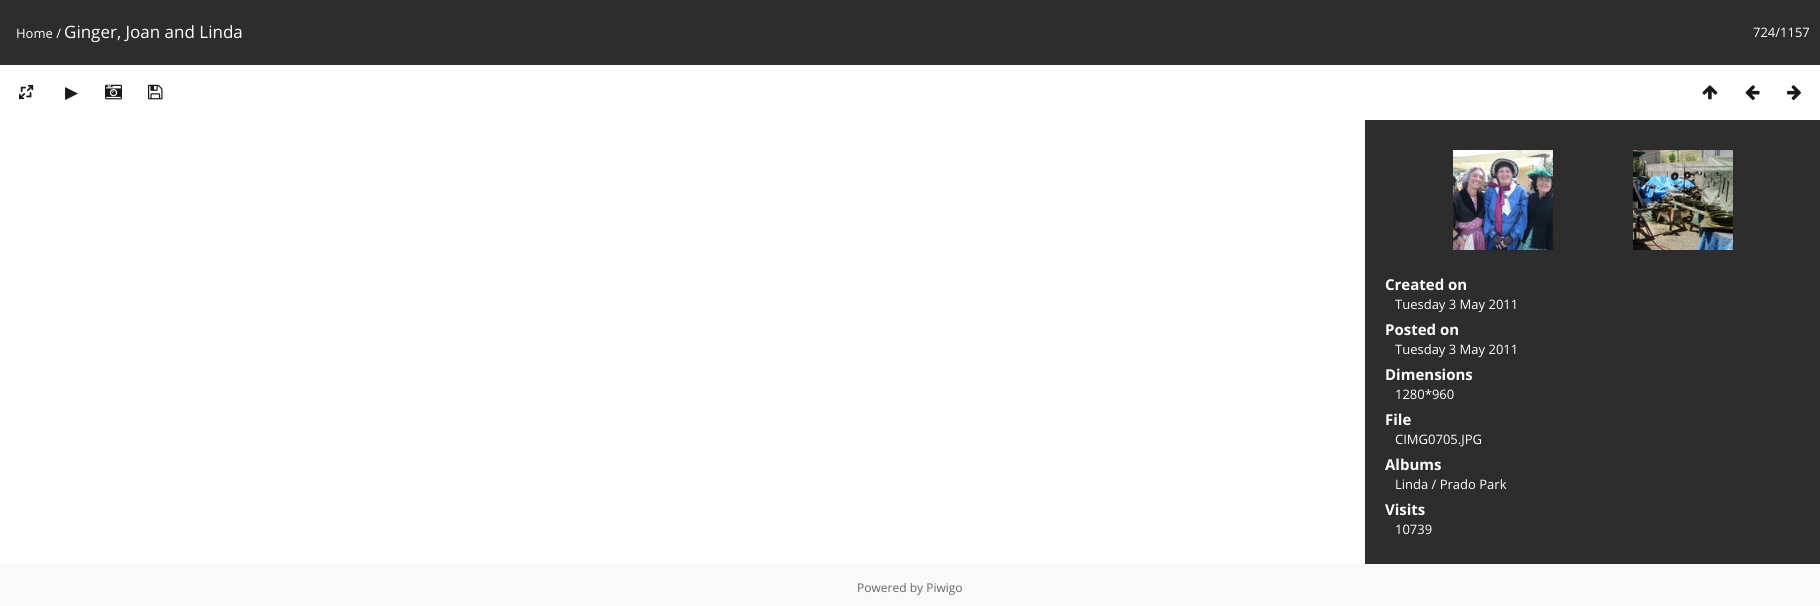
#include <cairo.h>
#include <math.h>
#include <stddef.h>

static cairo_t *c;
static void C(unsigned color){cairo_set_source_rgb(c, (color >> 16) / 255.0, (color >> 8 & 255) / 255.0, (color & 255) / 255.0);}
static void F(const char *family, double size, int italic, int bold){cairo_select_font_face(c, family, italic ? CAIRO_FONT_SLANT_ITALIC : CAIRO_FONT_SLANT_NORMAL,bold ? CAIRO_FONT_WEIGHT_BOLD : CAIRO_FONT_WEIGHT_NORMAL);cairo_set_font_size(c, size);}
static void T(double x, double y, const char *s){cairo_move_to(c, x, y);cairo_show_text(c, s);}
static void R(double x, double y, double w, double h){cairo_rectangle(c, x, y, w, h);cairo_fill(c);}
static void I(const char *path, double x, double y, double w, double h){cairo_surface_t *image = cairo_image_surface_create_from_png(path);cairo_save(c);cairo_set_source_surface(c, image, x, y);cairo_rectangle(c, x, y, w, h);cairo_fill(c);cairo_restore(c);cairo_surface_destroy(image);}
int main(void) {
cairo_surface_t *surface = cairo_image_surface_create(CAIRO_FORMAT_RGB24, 1820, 606);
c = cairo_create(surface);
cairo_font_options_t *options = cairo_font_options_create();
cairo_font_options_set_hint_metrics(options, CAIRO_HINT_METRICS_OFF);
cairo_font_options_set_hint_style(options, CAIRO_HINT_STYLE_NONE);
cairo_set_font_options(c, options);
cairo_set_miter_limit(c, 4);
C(0xffffff);
cairo_paint(c);
C(0x2d2d2d);
R(0,0,1820,65);
F("Open Sans",13,0,0);
C(0xffffff);
T(16,38,"Home /");
F("Open Sans",17,0,0);
T(64,38,"Ginger, Joan and Linda");
F("Open Sans",13,0,0);
T(1753,37,"724/1157");
I("1.png",19,84,15,16);
F("DejaVu Sans",17,0,0);
C(0x1a1a1a);
T(65,98,"▶");
I("2.png",105,84,17,16);
I("3.png",148,84,15,16);
I("4.png",1702,85,16,15);
I("5.png",1745,85,15,15);
I("6.png",1787,85,14,15);
C(0x2d2d2d);
R(1365,120,455,444);
I("7.png",1453,150,100,100);
I("8.png",1633,150,100,100);
F("Open Sans",15,0,1);
C(0xffffff);
T(1385,290,"Created on");
F("Open Sans",13,0,0);
T(1395,309,"Tuesday 3 May 2011");
F("Open Sans",15,0,1);
T(1385,335,"Posted on");
F("Open Sans",13,0,0);
T(1395,354,"Tuesday 3 May 2011");
F("Open Sans",15,0,1);
T(1385,380,"Dimensions");
F("Open Sans",13,0,0);
T(1395,399,"1280*960");
F("Open Sans",15,0,1);
T(1385,425,"File");
F("Open Sans",13,0,0);
T(1395,444,"CIMG0705.JPG");
F("Open Sans",15,0,1);
T(1385,470,"Albums");
F("Open Sans",13,0,0);
T(1395,489,"Linda / Prado Park");
F("Open Sans",15,0,1);
T(1385,515,"Visits");
F("Open Sans",13,0,0);
T(1395,534,"10739");
C(0xf9f9f9);
R(0,564,1820,42);
F("Open Sans",12,0,0);
C(0x666666);
T(857,592,"Powered by Piwigo");
cairo_surface_write_to_png(surface, "o.png");
cairo_font_options_destroy(options);
cairo_destroy(c);
cairo_surface_destroy(surface);
return 0;
}
